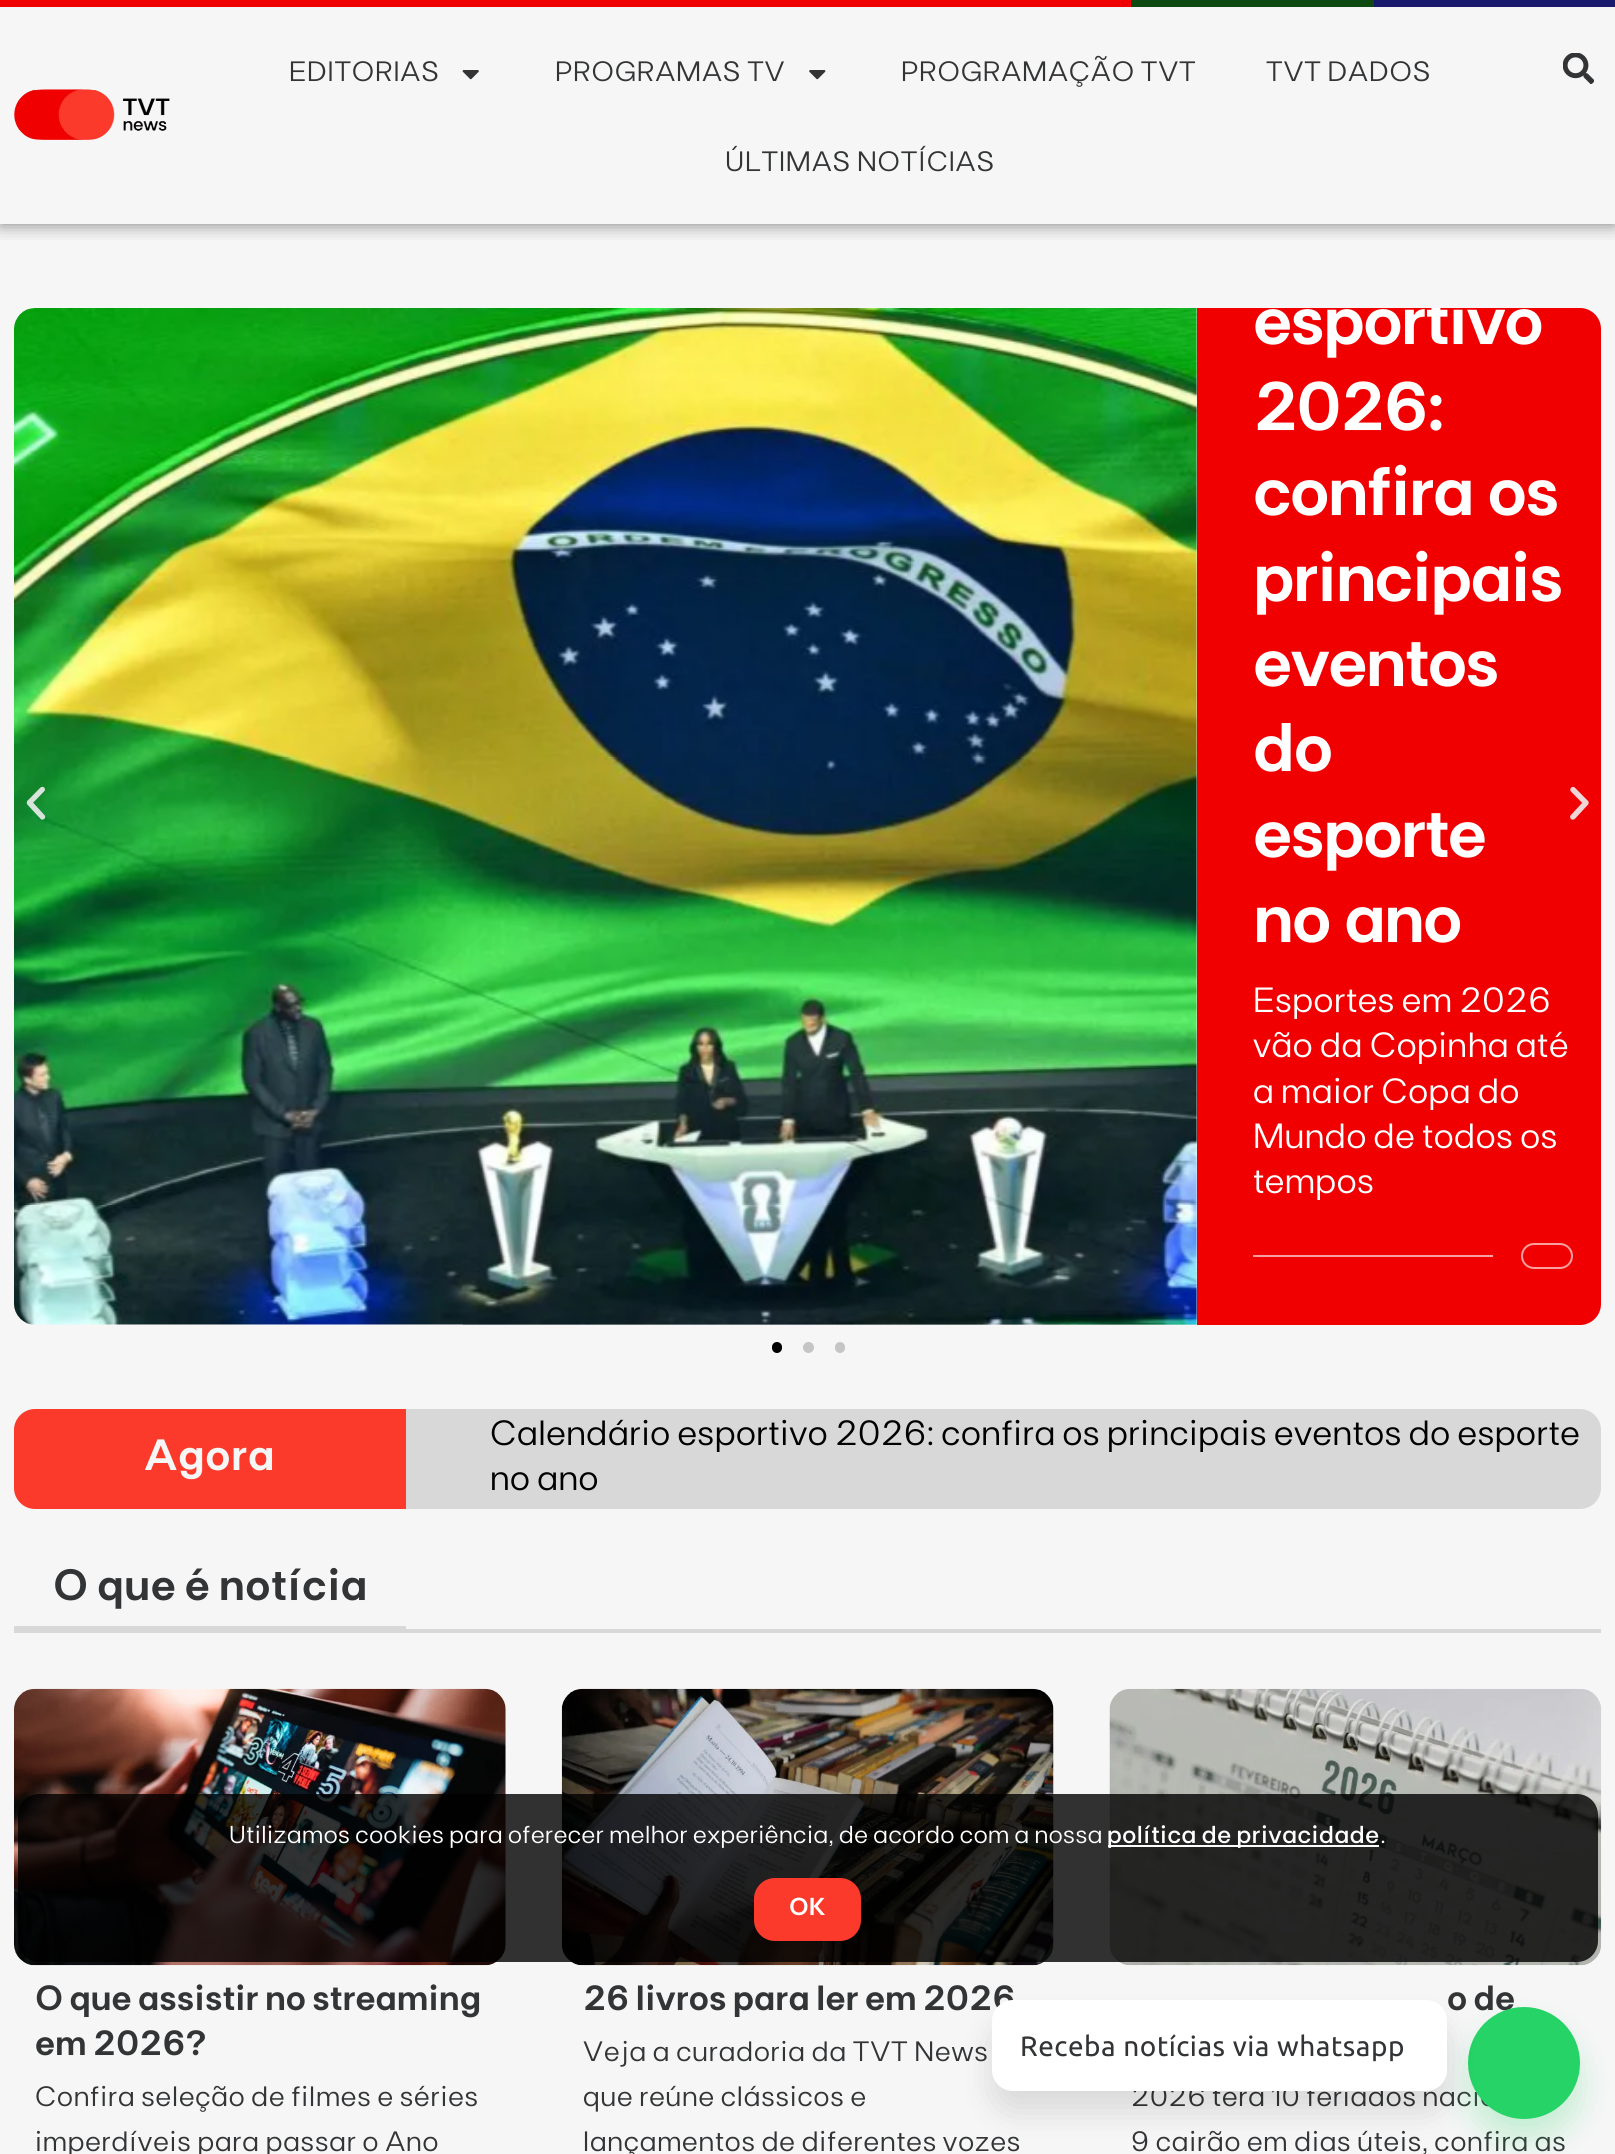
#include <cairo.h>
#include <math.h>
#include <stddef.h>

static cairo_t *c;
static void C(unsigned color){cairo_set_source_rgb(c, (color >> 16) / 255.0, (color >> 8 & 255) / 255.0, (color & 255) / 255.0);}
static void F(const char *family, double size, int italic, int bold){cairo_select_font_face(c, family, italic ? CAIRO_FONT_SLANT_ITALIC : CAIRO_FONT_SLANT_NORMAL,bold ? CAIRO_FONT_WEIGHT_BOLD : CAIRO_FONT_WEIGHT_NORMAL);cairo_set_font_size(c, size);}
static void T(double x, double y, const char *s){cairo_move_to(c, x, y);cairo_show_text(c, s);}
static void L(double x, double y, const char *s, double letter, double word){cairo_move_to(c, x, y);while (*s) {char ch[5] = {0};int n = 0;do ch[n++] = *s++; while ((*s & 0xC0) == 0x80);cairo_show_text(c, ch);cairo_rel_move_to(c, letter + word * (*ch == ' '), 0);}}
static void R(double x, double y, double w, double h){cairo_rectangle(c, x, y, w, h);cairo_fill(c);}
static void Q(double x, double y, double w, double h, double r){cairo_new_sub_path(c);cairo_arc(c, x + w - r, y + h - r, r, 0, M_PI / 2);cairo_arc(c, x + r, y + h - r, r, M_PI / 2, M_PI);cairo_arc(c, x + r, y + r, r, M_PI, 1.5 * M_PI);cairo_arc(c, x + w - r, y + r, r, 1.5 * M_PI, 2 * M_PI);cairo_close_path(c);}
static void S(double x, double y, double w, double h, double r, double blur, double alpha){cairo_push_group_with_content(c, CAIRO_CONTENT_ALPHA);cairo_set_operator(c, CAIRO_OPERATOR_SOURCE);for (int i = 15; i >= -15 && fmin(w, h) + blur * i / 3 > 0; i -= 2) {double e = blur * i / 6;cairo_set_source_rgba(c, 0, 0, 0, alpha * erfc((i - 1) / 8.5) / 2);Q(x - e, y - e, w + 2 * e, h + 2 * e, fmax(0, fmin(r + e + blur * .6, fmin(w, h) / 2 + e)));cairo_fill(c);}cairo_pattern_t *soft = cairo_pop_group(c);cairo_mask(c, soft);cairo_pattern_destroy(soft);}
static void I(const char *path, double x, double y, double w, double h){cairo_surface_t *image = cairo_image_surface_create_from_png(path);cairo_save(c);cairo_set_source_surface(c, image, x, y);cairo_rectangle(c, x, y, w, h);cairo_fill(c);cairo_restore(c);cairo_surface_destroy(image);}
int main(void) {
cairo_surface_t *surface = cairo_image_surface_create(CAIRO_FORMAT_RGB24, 1615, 2154);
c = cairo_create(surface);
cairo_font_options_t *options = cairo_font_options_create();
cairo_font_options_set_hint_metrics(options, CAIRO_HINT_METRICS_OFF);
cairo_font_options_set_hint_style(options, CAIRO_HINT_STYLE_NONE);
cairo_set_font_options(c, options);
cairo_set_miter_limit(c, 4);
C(0xf6f6f6);
cairo_paint(c);
cairo_save(c);
cairo_rectangle(c,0,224,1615,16);
cairo_clip(c);
C(0x000000);
S(0,0,1615,224,0,9,.5);
cairo_restore(c);
C(0xf00000);
R(0,0,1131,7);
C(0x0d4910);
R(1131,0,243,7);
C(0x19196d);
R(1374,0,241,7);
I("1.png",14,89,156,51);
F("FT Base",28,0,0);
C(0x323436);
L(289,81,"EDITORIAS",.85,0);
I("2.png",462,70,17,10);
L(555,81,"PROGRAMAS TV",.85,0);
I("3.png",809,70,17,10);
L(901,81,"PROGRAMAÇÃO TVT",.85,0);
L(1266,81,"TVT DADOS",.85,0);
L(725,171,"ÚLTIMAS NOTÍCIAS",.85,0);
I("4.png",1563,53,31,31);
I("6.png",14,308,1183,1017);
I("5.png",26,786,20,34);
C(0xf00000);
cairo_new_path(c);
cairo_move_to(c,1197,308);
cairo_line_to(c,1580,308);
cairo_curve_to(c,1591.5,308,1601,317.5,1601,329);
cairo_line_to(c,1601,1304);
cairo_curve_to(c,1601,1315.5,1591.5,1325,1580,1325);
cairo_line_to(c,1197,1325);
cairo_close_path(c);
cairo_fill(c);
cairo_save(c);
Q(14,308,1587,1017,21);
cairo_clip(c);
F("FT Base SemiBold",68.5,0,0);
C(0xffffff);
L(1253,344,"esportivo",-1.75,0);
cairo_restore(c);
F("FT Base SemiBold",68.5,0,0);
C(0xffffff);
L(1253,430,"2026:",-1.75,0);
L(1253,515,"confira os",-1.75,4);
L(1253,601,"principais",-1.75,0);
L(1253,686,"eventos",-1.75,0);
L(1253,771,"do",-1.75,0);
L(1253,857,"esporte",-1.75,0);
L(1253,942,"no ano",-1.75,4);
F("FT Base",35,0,0);
L(1253,1012,"Esportes em 2026",.53,0);
L(1253,1057,"vão da Copinha até",.53,0);
L(1253,1103,"a maior Copa do",.53,0);
L(1253,1148,"Mundo de todos os",.53,0);
L(1253,1193,"tempos",.53,0);
C(0xf9a0a0);
R(1253,1255,240,2);
Q(1522,1244,50,24,12);
cairo_stroke(c);
I("7.png",1570,786,19,34);
C(0x000000);
Q(772,1342,10,11,5);
cairo_fill(c);
C(0xc5c5c5);
cairo_arc(c,808.5,1347.5,5.5,0,2 * M_PI);
cairo_fill(c);
Q(835,1342,10,11,5);
cairo_fill(c);
C(0xfc3a2b);
cairo_new_path(c);
cairo_move_to(c,35,1409);
cairo_line_to(c,406,1409);
cairo_line_to(c,406,1509);
cairo_line_to(c,35,1509);
cairo_curve_to(c,23.5,1509,14,1499.5,14,1488);
cairo_line_to(c,14,1430);
cairo_curve_to(c,14,1418.5,23.5,1409,35,1409);
cairo_close_path(c);
cairo_fill(c);
F("FT Base SemiBold",43.75,0,0);
C(0xf6f6f6);
L(144,1470,"Agora",.53,0);
C(0xd9d8d8);
cairo_new_path(c);
cairo_move_to(c,406,1409);
cairo_line_to(c,1580,1409);
cairo_curve_to(c,1591.5,1409,1601,1418.5,1601,1430);
cairo_line_to(c,1601,1488);
cairo_curve_to(c,1601,1499.5,1591.5,1509,1580,1509);
cairo_line_to(c,406,1509);
cairo_close_path(c);
cairo_fill(c);
F("FT Base",35,0,0);
C(0x000000);
L(490,1445,"Calendário esportivo 2026: confira os principais eventos do esporte",.53,0);
L(490,1490,"no ano",.53,0);
C(0xd9d8d8);
R(14,1626,392,7);
F("FT Base SemiBold",43.75,0,0);
C(0x323436);
L(53,1600,"O que é notícia",.53,0);
C(0xd9d8d8);
R(406,1629,1195,4);
I("8.png",14,1688,492,278);
F("FT Base SemiBold",35,0,0);
C(0x323436);
T(35,2010,"O que assistir no streaming");
T(35,2055,"em 2026?");
F("FT Base",28,0,0);
L(35,2106,"Confira seleção de filmes e séries",.85,0);
L(35,2151,"imperdíveis para passar o Ano",.85,0);
I("9.png",561,1688,493,278);
F("FT Base SemiBold",35,0,0);
T(583,2010,"26 livros para ler em 2026");
F("FT Base",28,0,0);
L(583,2061,"Veja a curadoria da TVT News",.85,0);
L(583,2106,"que reúne clássicos e",.85,0);
L(583,2151,"lançamentos de diferentes vozes",.85,0);
I("10.png",1109,1688,493,278);
F("FT Base SemiBold",35,0,0);
T(1447,2010,"o de");
F("FT Base",28,0,0);
L(1131,2106,"2026 terá 10 feriados nacio",.85,0);
L(1131,2151,"9 cairão em dias úteis, confira as",.85,0);
cairo_set_source_rgba(c,0,0,0,0.8);
Q(18,1794,1580,168,21);
cairo_fill(c);
F("FT Base",24.5,0,0);
C(0xffffff);
L(229,1843,"Utilizamos cookies para oferecer melhor experiência, de acordo com a nossa",.53,0);
R(1108,1845,271,2);
F("FT Base Medium",24.5,0,0);
L(1107,1843,"política de privacidade",.53,0);
F("FT Base",24.5,0,0);
L(1380,1843,".",.53,0);
C(0xfc3a2b);
Q(754,1878,107,63,21);
cairo_fill(c);
F("FT Base SemiBold",24.5,0,0);
C(0xffffff);
T(789,1915,"OK");
C(0x25d366);
S(1468,2028,112,112,56,16,.24);
C(0x25d366);
cairo_arc(c,1524,2063,56,0,2 * M_PI);
cairo_fill(c);
C(0x000000);
S(992,2021,455,91,21,16,.12);
C(0xffffff);
Q(992,2000,455,91,21);
cairo_fill(c);
F("Ubuntu",28,0,0);
C(0x323436);
L(1020,2056,"Receba notícias via whatsapp",.53,0);
cairo_surface_write_to_png(surface, "o.png");
cairo_font_options_destroy(options);
cairo_destroy(c);
cairo_surface_destroy(surface);
return 0;
}
